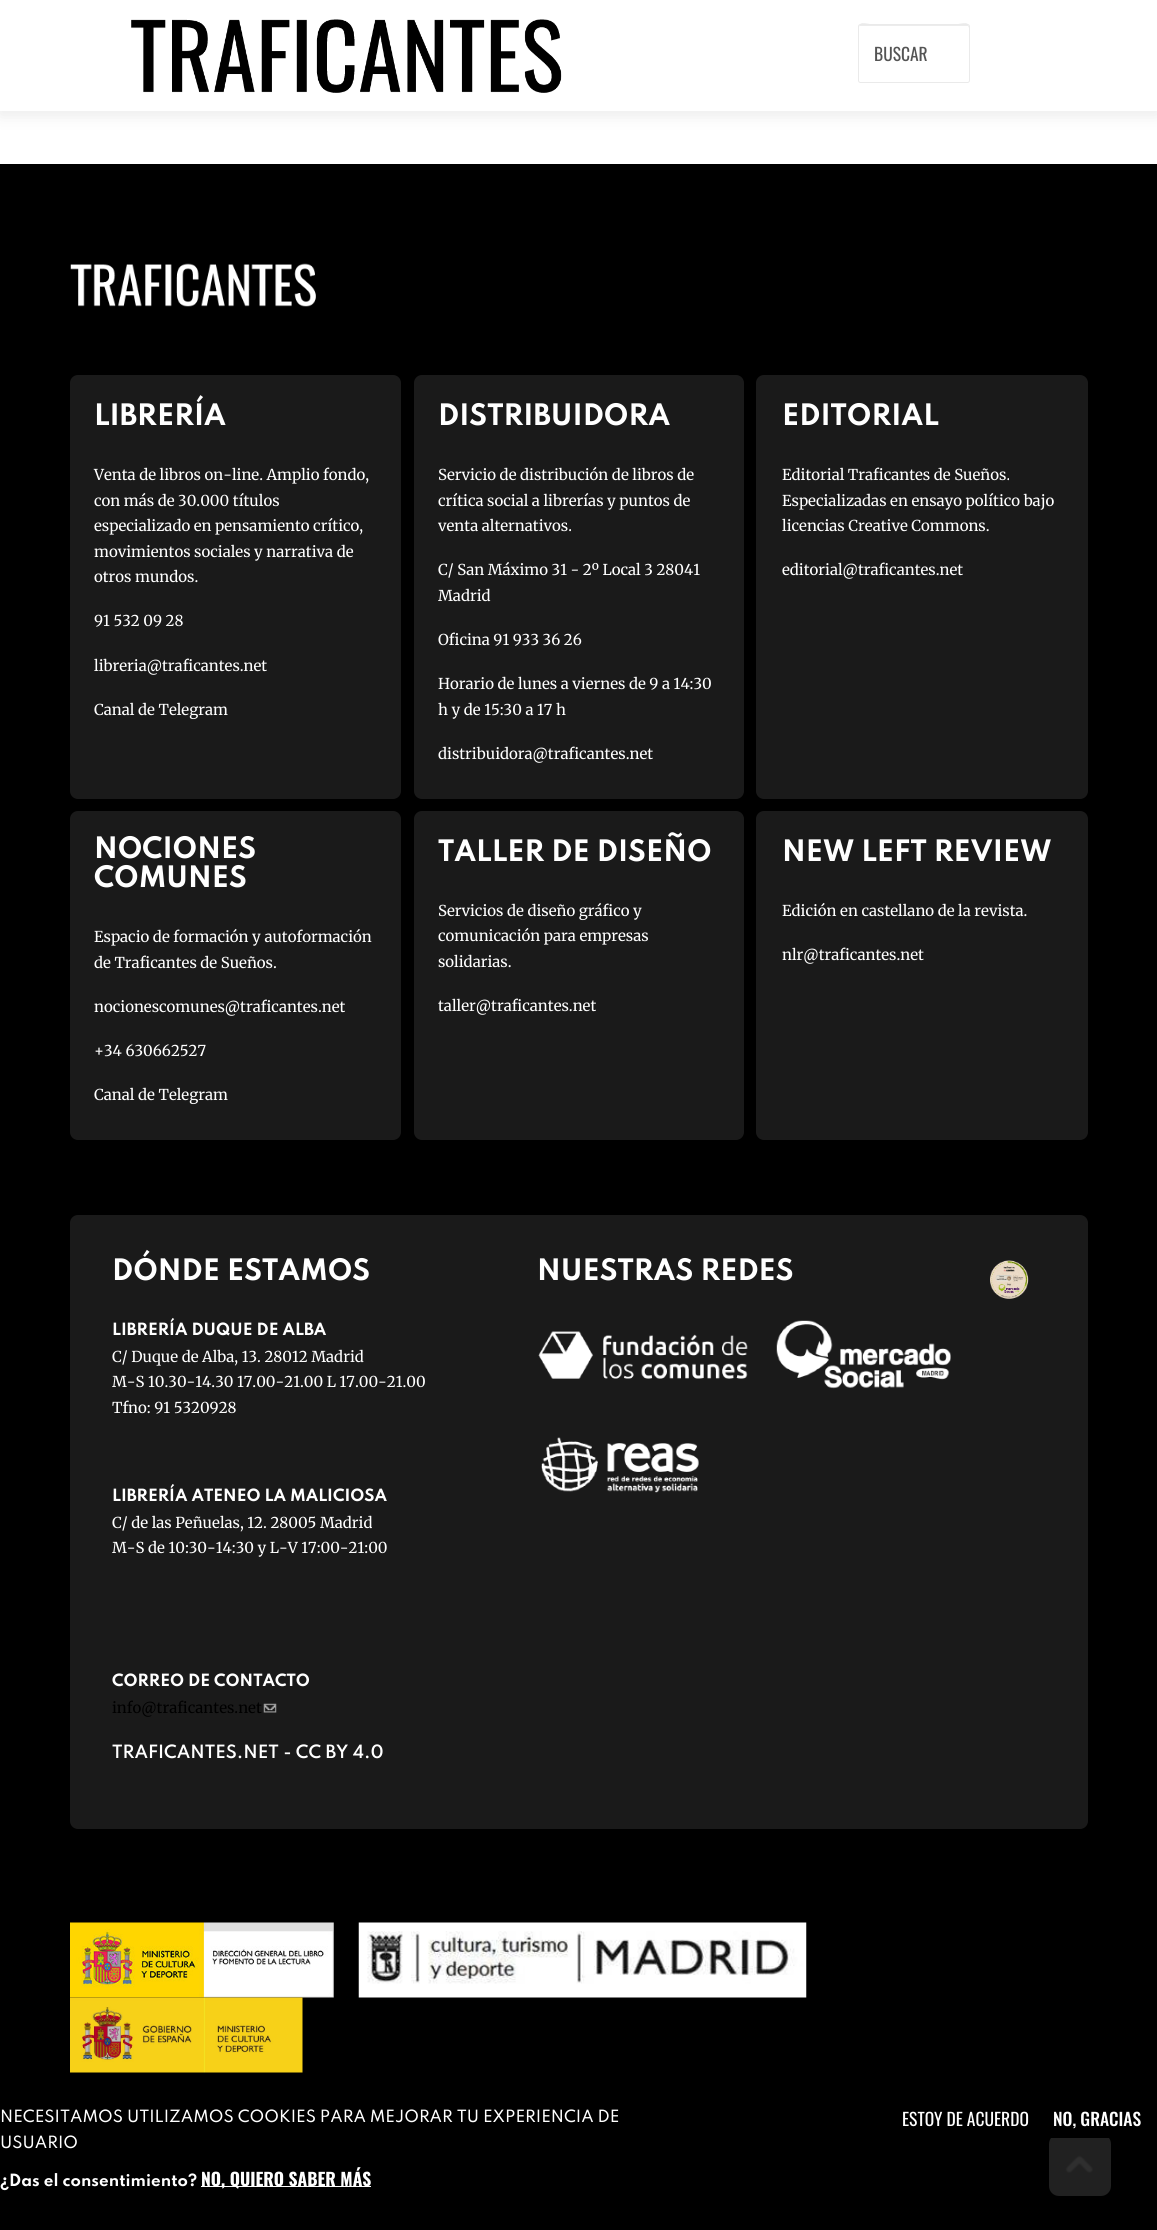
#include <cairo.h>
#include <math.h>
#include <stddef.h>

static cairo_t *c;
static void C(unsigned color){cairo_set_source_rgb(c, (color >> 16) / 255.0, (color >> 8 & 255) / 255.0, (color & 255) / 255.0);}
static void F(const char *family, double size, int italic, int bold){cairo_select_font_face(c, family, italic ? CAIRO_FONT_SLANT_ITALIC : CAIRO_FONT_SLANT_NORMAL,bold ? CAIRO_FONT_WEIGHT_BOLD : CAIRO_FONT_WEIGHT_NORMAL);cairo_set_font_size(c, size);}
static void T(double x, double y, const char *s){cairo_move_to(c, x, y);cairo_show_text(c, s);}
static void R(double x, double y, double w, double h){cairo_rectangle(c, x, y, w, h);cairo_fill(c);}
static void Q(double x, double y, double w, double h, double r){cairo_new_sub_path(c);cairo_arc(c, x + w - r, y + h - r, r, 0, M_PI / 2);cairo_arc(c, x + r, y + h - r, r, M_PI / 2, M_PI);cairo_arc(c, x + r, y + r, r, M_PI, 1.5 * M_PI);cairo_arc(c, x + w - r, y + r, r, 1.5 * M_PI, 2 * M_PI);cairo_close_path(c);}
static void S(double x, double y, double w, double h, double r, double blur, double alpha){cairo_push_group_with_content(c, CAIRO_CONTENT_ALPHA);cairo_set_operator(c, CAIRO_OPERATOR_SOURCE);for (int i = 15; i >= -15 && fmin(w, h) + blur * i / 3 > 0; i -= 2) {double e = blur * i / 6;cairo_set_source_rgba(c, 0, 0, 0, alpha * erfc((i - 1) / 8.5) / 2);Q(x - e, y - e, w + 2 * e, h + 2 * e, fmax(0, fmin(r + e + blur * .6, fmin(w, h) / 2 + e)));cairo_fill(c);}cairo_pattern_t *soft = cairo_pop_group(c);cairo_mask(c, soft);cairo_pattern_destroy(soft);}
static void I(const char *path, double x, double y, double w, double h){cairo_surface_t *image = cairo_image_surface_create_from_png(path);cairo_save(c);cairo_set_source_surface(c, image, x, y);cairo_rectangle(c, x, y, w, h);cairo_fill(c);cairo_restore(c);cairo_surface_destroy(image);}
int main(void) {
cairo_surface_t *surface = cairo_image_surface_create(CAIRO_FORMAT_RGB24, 1157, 2230);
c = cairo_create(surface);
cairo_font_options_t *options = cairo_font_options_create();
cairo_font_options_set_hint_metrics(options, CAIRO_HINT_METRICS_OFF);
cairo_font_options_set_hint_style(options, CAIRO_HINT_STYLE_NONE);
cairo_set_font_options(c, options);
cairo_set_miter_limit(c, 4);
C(0xffffff);
cairo_paint(c);
C(0xeaeaea);
S(0,3,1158,112,0,8,1);
C(0xffffff);
R(0,0,1157,111);
I("1.png",131,19,431,74);
C(0xececec);
cairo_new_path(c);
cairo_move_to(c,860,26);
cairo_line_to(c,968,26);
cairo_line_to(c,969,28);
cairo_curve_to(c,969,19,960,25,950,25);
cairo_line_to(c,878,25);
cairo_curve_to(c,868,25,859,19,859,28);
cairo_curve_to(c,859,27,859,26,860,26);
cairo_close_path(c);
cairo_fill(c);
Q(858.5,24.5,111,58,2);
C(0xeaeaea);
cairo_set_line_width(c,1);
cairo_stroke(c);
F("Oswald",17.5,0,0);
C(0x545454);
T(874,61,"BUSCAR");
C(0x000000);
R(0,164,1157,2066);
I("2.png",70,263,246,44);
C(0x1a1a1a);
Q(70,375,331,424,8);
cairo_fill(c);
F("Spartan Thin",26.25,0,1);
C(0xffffff);
T(94,425,"LIBRERÍA");
F("Merriweather",15,0,0);
T(94,480,"Venta de libros on-line. Amplio fondo,");
T(94,506,"con más de 30.000 títulos");
T(94,531,"especializado en pensamiento crítico,");
T(94,557,"movimientos sociales y narrativa de");
T(94,582,"otros mundos.");
T(94,626,"91 532 09 28");
T(94,671,"libreria@traficantes.net");
T(94,715,"Canal de Telegram");
C(0x1a1a1a);
Q(414,375,330,424,8);
cairo_fill(c);
F("Spartan Thin",26.25,0,1);
C(0xffffff);
T(438,425,"DISTRIBUIDORA");
F("Merriweather",15,0,0);
T(438,480,"Servicio de distribución de libros de");
T(438,506,"crítica social a librerías y puntos de");
T(438,531,"venta alternativos.");
T(438,575,"C/ San Máximo 31 - 2º Local 3 28041");
T(438,601,"Madrid");
T(438,645,"Oficina 91 933 36 26");
T(438,689,"Horario de lunes a viernes de 9 a 14:30");
T(438,715,"h y de 15:30 a 17 h");
T(438,759,"distribuidora@traficantes.net");
C(0x1a1a1a);
Q(756,375,332,424,8);
cairo_fill(c);
F("Spartan Thin",26.25,0,1);
C(0xffffff);
T(782,425,"EDITORIAL");
F("Merriweather",15,0,0);
T(782,480,"Editorial Traficantes de Sueños.");
T(782,506,"Especializadas en ensayo político bajo");
T(782,531,"licencias Creative Commons.");
T(782,575,"editorial@traficantes.net");
C(0x1a1a1a);
Q(70,811,331,329,8);
cairo_fill(c);
F("Spartan Thin",26.25,0,1);
C(0xffffff);
T(94,858,"NOCIONES");
T(94,887,"COMUNES");
F("Merriweather",15,0,0);
T(94,942,"Espacio de formación y autoformación");
T(94,968,"de Traficantes de Sueños.");
T(94,1012,"nocionescomunes@traficantes.net");
T(94,1056,"+34 630662527");
T(94,1100,"Canal de Telegram");
C(0x1a1a1a);
Q(414,811,330,329,8);
cairo_fill(c);
F("Spartan Thin",26.25,0,1);
C(0xffffff);
T(438,861,"TALLER DE DISEÑO");
F("Merriweather",15,0,0);
T(438,916,"Servicios de diseño gráfico y");
T(438,941,"comunicación para empresas");
T(438,967,"solidarias.");
T(438,1011,"taller@traficantes.net");
C(0x1a1a1a);
Q(756,811,332,329,8);
cairo_fill(c);
F("Spartan Thin",26.25,0,1);
C(0xffffff);
T(782,861,"NEW LEFT REVIEW");
F("Merriweather",15,0,0);
T(782,916,"Edición en castellano de la revista.");
T(782,960,"nlr@traficantes.net");
C(0x1a1a1a);
Q(70,1215,1018,614,8);
cairo_fill(c);
F("Spartan Thin",26.25,0,1);
C(0xffffff);
T(112,1280,"DÓNDE ESTAMOS");
F("Spartan Thin",15,0,1);
T(112,1335,"LIBRERÍA DUQUE DE ALBA");
F("Merriweather",15,0,0);
T(112,1362,"C/ Duque de Alba, 13. 28012 Madrid");
T(112,1387,"M-S 10.30-14.30 17.00-21.00 L 17.00-21.00");
T(112,1413,"Tfno: 91 5320928");
F("Spartan Thin",15,0,1);
T(112,1501,"LIBRERÍA ATENEO LA MALICIOSA");
F("Merriweather",15,0,0);
T(112,1528,"C/ de las Peñuelas, 12. 28005 Madrid");
T(112,1553,"M-S de 10:30-14:30 y L-V 17:00-21:00");
F("Spartan Thin",15,0,1);
T(112,1686,"CORREO DE CONTACTO");
F("Merriweather",15,0,0);
C(0x000000);
T(112,1713,"info@traficantes.net");
I("3.png",263,1703,14,10);
F("Spartan Thin SemiBold",16.25,0,0);
C(0xffffff);
T(112,1758,"TRAFICANTES.NET - CC BY 4.0");
F("Spartan Thin",26.25,0,1);
T(537,1280,"NUESTRAS REDES");
I("4.png",538,1331,210,48);
I("5.png",776,1320,175,69);
I("6.png",541,1437,158,56);
I("7.png",990,1260,39,39);
I("8.png",70,1922,264,76);
I("9.png",358,1922,449,76);
I("10.png",70,1997,233,76);
C(0xa3a3a3);
Q(1049,2134,62,62,10);
cairo_fill(c);
I("11.png",1065,2155,28,18);
cairo_set_source_rgba(c,0,0,0,0.8);
Q(0,2081,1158,149,2.5);
cairo_fill(c);
F("Spartan Thin Medium",15,0,0);
C(0xffffff);
T(0,2122,"NECESITAMOS UTILIZAMOS COOKIES PARA MEJORAR TU EXPERIENCIA DE");
T(0,2148,"USUARIO");
F("Spartan Thin",15,0,1);
T(0,2186,"¿Das el consentimiento?");
R(201,2186,170,1);
F("Oswald",17.5,0,1);
T(201,2186,"NO, QUIERO SABER MÁS");
F("Oswald",17.5,0,0);
T(902,2126,"ESTOY DE ACUERDO");
C(0x000000);
Q(1043,2099,108,39,2.5);
cairo_fill(c);
F("Oswald Medium",17.5,0,0);
C(0xffffff);
T(1053,2126,"NO, GRACIAS");
cairo_surface_write_to_png(surface, "o.png");
cairo_font_options_destroy(options);
cairo_destroy(c);
cairo_surface_destroy(surface);
return 0;
}
